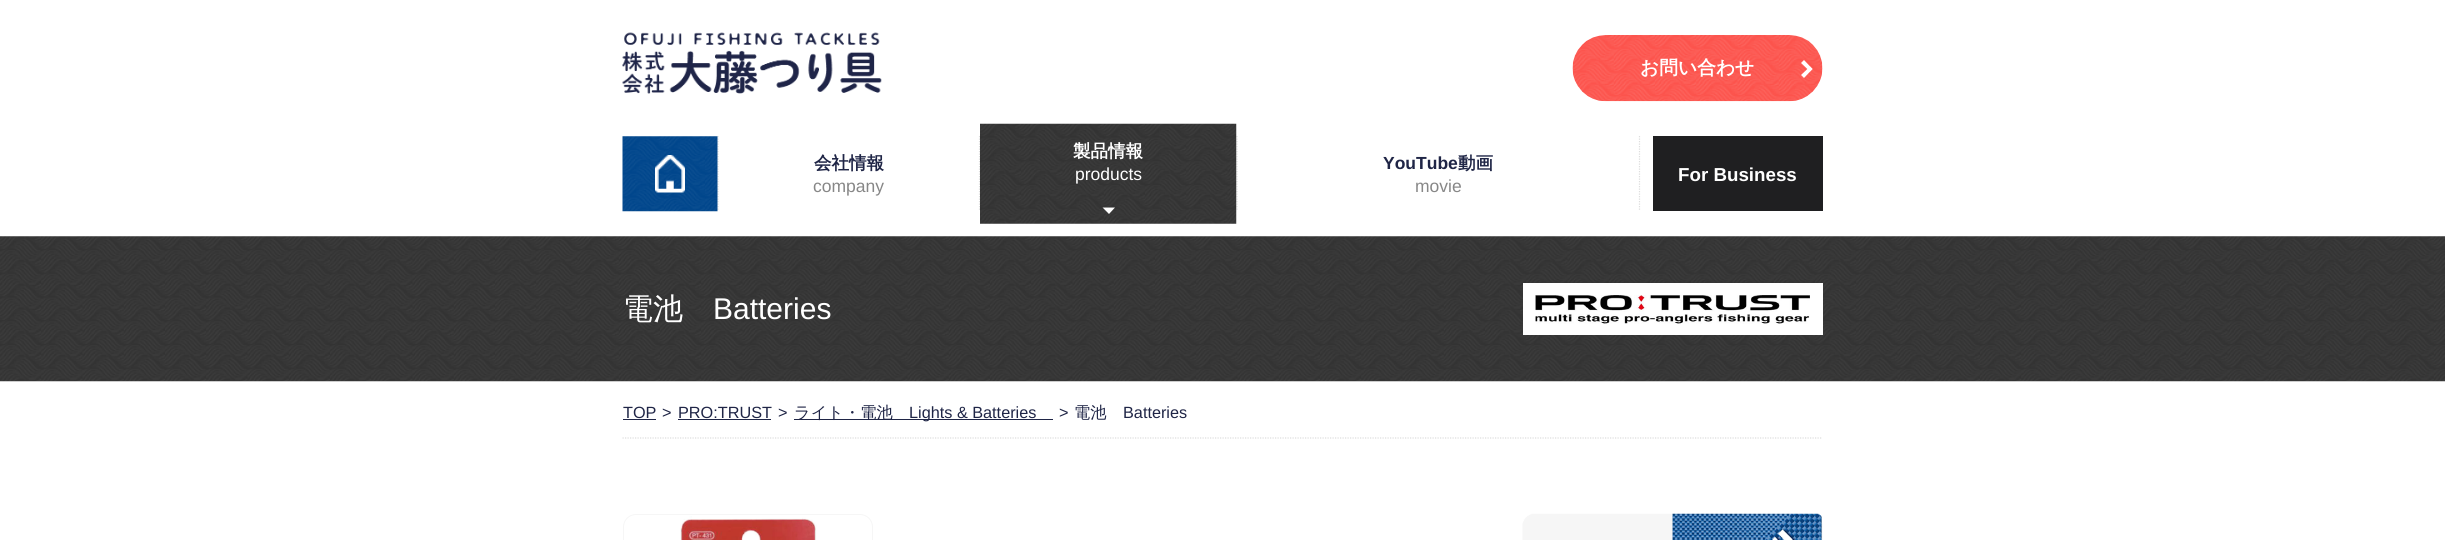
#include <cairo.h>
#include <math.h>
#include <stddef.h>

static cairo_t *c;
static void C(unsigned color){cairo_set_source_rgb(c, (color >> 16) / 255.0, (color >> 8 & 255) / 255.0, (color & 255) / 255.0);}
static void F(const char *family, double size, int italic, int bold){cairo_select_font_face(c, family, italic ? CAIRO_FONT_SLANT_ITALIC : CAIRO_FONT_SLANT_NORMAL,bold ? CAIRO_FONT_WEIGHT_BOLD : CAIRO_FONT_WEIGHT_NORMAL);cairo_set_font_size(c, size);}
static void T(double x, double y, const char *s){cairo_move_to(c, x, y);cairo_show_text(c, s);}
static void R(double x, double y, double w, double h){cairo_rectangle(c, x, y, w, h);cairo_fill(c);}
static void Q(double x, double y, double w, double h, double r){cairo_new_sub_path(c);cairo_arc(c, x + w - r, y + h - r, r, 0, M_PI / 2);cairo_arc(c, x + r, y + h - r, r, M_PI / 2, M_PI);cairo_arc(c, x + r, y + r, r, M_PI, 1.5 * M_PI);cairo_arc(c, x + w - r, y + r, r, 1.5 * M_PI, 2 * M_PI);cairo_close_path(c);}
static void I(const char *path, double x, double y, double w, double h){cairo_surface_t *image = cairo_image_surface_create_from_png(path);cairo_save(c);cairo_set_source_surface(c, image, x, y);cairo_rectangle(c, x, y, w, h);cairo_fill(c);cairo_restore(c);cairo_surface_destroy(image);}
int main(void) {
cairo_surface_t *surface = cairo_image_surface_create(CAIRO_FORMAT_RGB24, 2445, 540);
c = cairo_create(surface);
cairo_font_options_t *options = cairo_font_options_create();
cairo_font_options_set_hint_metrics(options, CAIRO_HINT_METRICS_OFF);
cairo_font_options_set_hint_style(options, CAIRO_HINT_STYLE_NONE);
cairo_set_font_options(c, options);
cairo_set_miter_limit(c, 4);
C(0xffffff);
cairo_paint(c);
I("1.png",622,32,260,62);
I("2.png",1572,35,251,67);
F("WenQuanYi Zen Hei",18.75,0,1);
C(0xffffff);
T(1640,74,"お問い合わせ");
cairo_new_path(c);
cairo_move_to(c,1804,60);
cairo_line_to(c,1812.5,69);
cairo_line_to(c,1810,71.5);
cairo_line_to(c,1801,63);
cairo_close_path(c);
cairo_fill(c);
cairo_new_path(c);
cairo_move_to(c,1810,66.5);
cairo_line_to(c,1812.5,69);
cairo_line_to(c,1804,78);
cairo_line_to(c,1801,75);
cairo_close_path(c);
cairo_fill(c);
cairo_new_path(c);
cairo_move_to(c,718,136);
cairo_line_to(c,718,211);
C(0xdddddd);
cairo_set_line_width(c,1.2);
cairo_set_dash(c,(double[]){1.25,1.25},2,0);
cairo_stroke(c);
I("3.png",622,136,96,76);
cairo_new_path(c);
cairo_move_to(c,979.5,136);
cairo_line_to(c,979.5,211);
cairo_stroke(c);
F("WenQuanYi Zen Hei",17.5,0,1);
C(0x1f2546);
T(814,169,"会社情報");
F("Liberation Sans",17.5,0,0);
C(0x878787);
T(813,192,"company");
cairo_new_path(c);
cairo_move_to(c,1237,136);
cairo_line_to(c,1237,211);
C(0xdddddd);
cairo_stroke(c);
I("4.png",980,123,257,101);
F("WenQuanYi Zen Hei",17.5,0,1);
C(0xffffff);
T(1073,157,"製品情報");
F("Liberation Sans",17.5,0,0);
T(1075,180,"products");
cairo_new_path(c);
cairo_move_to(c,1102.5,207.5);
cairo_line_to(c,1115,207.5);
cairo_line_to(c,1109,214);
cairo_close_path(c);
cairo_fill(c);
cairo_new_path(c);
cairo_move_to(c,1639.5,136);
cairo_line_to(c,1639.5,211);
C(0xdddddd);
cairo_stroke(c);
F("Liberation Sans",17.5,0,1);
C(0x1f2546);
T(1383,169,"YouTube");
F("WenQuanYi Zen Hei",17.5,0,1);
T(1458,169,"動画");
F("Liberation Sans",17.5,0,0);
C(0x878787);
T(1415,192,"movie");
C(0x1f1f21);
R(1653,136,170,75);
F("Liberation Sans",18.75,0,1);
C(0xffffff);
T(1678,181,"For Business");
I("5.png",0,236,2445,146);
F("WenQuanYi Zen Hei Medium",30,0,0);
T(623,319,"電池");
F("Liberation Sans",30,0,0);
T(713,319,"Batteries");
R(1523,283,300,52);
I("6.png",1535,295,275,29);
cairo_new_path(c);
cairo_move_to(c,622.5,438);
cairo_line_to(c,1822.5,438);
C(0xdddddd);
cairo_stroke(c);
F("Liberation Sans",16.25,0,0);
C(0x1f2546);
T(623,418,"TOP");
R(623,419,33,1);
T(662,418,">");
T(678,418,"PRO:TRUST");
R(678,419,93,1);
T(778,418,">");
R(794,419,259,1);
F("WenQuanYi Zen Hei Medium",16.25,0,0);
T(794,418,"ライト・電池");
F("Liberation Sans",16.25,0,0);
T(909,418,"Lights & Batteries");
T(1059,418,">");
F("WenQuanYi Zen Hei Medium",16.25,0,0);
T(1074,418,"電池");
F("Liberation Sans",16.25,0,0);
T(1123,418,"Batteries");
Q(623.5,514.5,249,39,12.5);
C(0xf6f6f6);
cairo_set_line_width(c,1);
cairo_set_dash(c,NULL,0,0);
cairo_stroke(c);
I("7.png",680,516,137,24);
I("8.png",1522,513,301,27);
cairo_surface_write_to_png(surface, "o.png");
cairo_font_options_destroy(options);
cairo_destroy(c);
cairo_surface_destroy(surface);
return 0;
}
